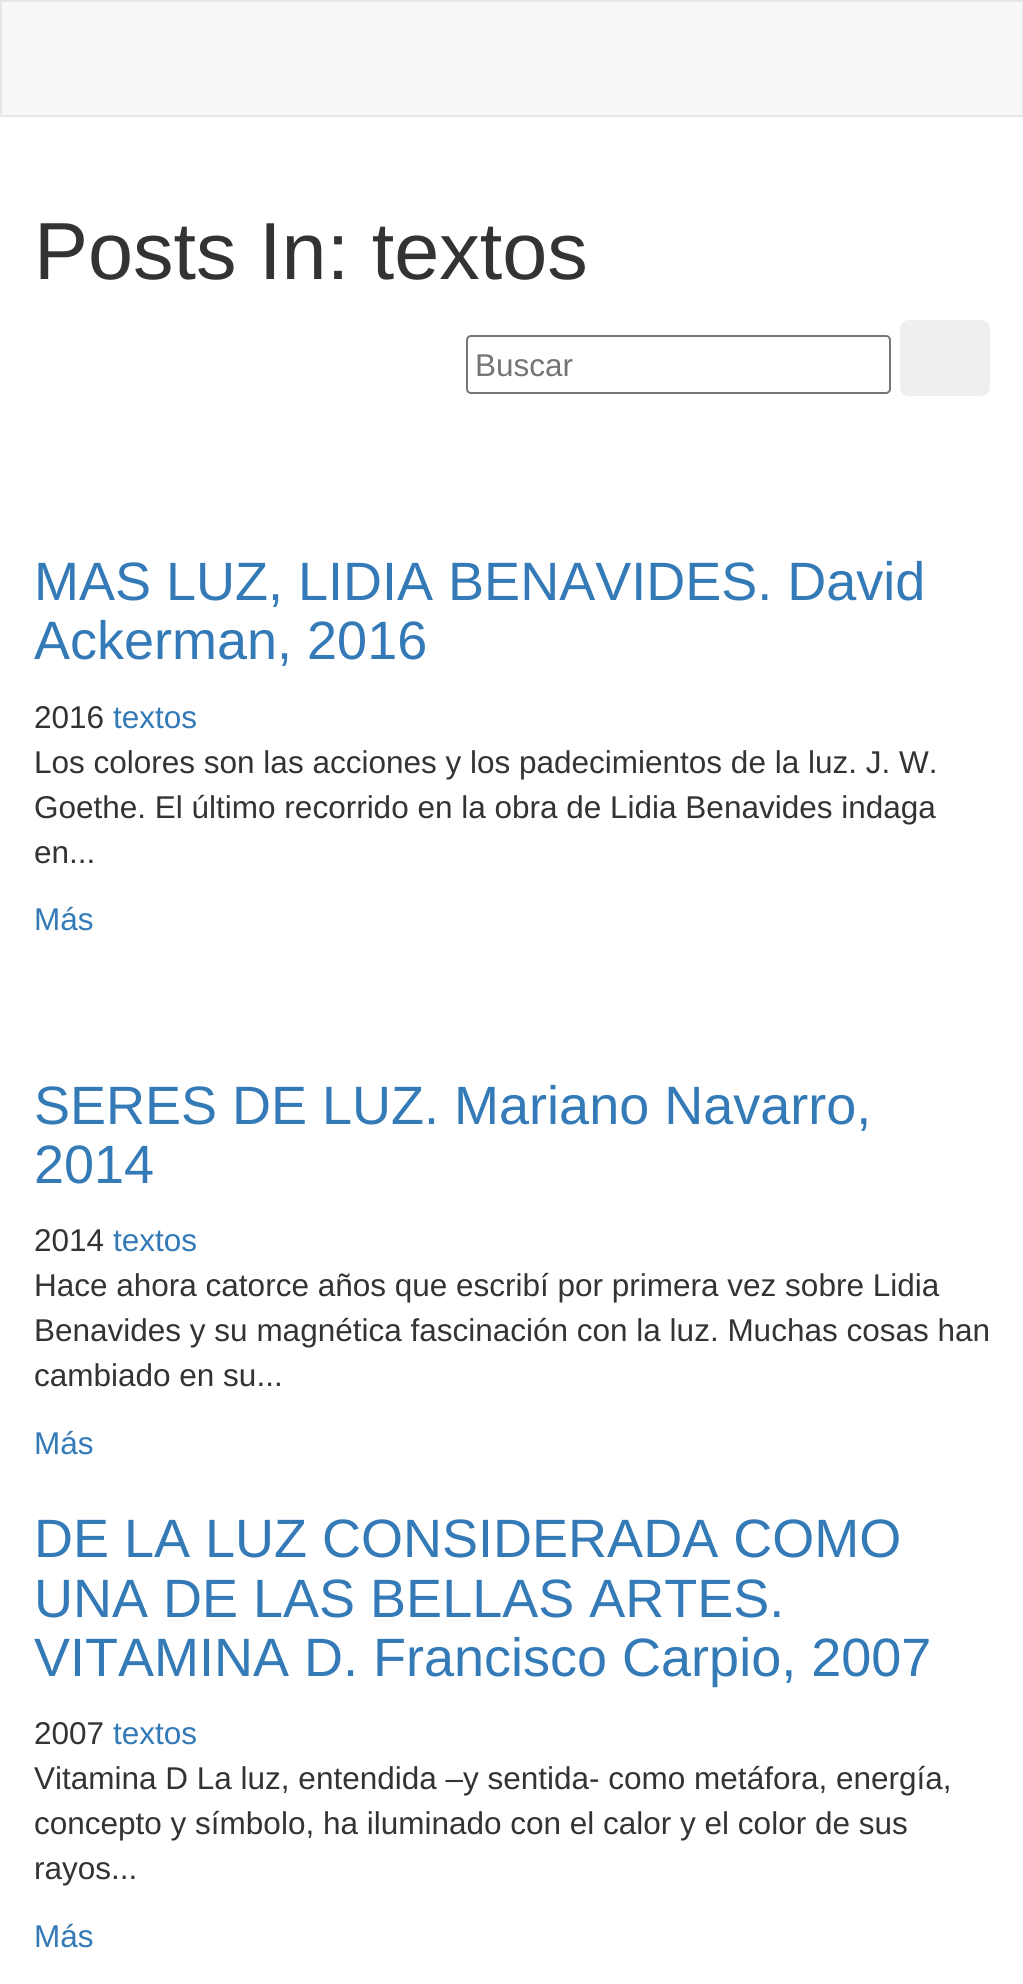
#include <cairo.h>
#include <math.h>
#include <stddef.h>

static cairo_t *c;
static void C(unsigned color){cairo_set_source_rgb(c, (color >> 16) / 255.0, (color >> 8 & 255) / 255.0, (color & 255) / 255.0);}
static void F(const char *family, double size, int italic, int bold){cairo_select_font_face(c, family, italic ? CAIRO_FONT_SLANT_ITALIC : CAIRO_FONT_SLANT_NORMAL,bold ? CAIRO_FONT_WEIGHT_BOLD : CAIRO_FONT_WEIGHT_NORMAL);cairo_set_font_size(c, size);}
static void T(double x, double y, const char *s){cairo_move_to(c, x, y);cairo_show_text(c, s);}
static void Q(double x, double y, double w, double h, double r){cairo_new_sub_path(c);cairo_arc(c, x + w - r, y + h - r, r, 0, M_PI / 2);cairo_arc(c, x + r, y + h - r, r, M_PI / 2, M_PI);cairo_arc(c, x + r, y + r, r, M_PI, 1.5 * M_PI);cairo_arc(c, x + w - r, y + r, r, 1.5 * M_PI, 2 * M_PI);cairo_close_path(c);}
int main(void) {
cairo_surface_t *surface = cairo_image_surface_create(CAIRO_FORMAT_RGB24, 1023, 1984);
c = cairo_create(surface);
cairo_font_options_t *options = cairo_font_options_create();
cairo_font_options_set_hint_metrics(options, CAIRO_HINT_METRICS_OFF);
cairo_font_options_set_hint_style(options, CAIRO_HINT_STYLE_NONE);
cairo_set_font_options(c, options);
cairo_set_miter_limit(c, 4);
C(0xffffff);
cairo_paint(c);
C(0xf8f8f8);
cairo_rectangle(c,1,1,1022,115);
cairo_fill_preserve(c);
C(0xe7e7e7);
cairo_stroke(c);
F("Liberation Sans",81,0,0);
C(0x333333);
T(34,279,"Posts In: textos");
Q(467,336,423,57,4);
C(0x767676);
cairo_stroke(c);
F("Liberation Sans",31.5,0,0);
C(0x757575);
T(475,376,"Buscar");
C(0xefefef);
Q(900,320,90,76,9);
cairo_fill(c);
F("Liberation Sans",54,0,0);
C(0x337ab7);
T(34,600,"MAS LUZ, LIDIA BENAVIDES. David");
T(34,659,"Ackerman, 2016");
F("Liberation Sans",31.5,0,0);
C(0x333333);
T(34,728,"2016");
C(0x337ab7);
T(113,728,"textos");
C(0x333333);
T(34,773,"Los colores son las acciones y los padecimientos de la luz. J. W.");
T(34,818,"Goethe. El último recorrido en la obra de Lidia Benavides indaga");
T(34,863,"en...");
C(0x337ab7);
T(34,930,"Más");
F("Liberation Sans",54,0,0);
T(34,1124,"SERES DE LUZ. Mariano Navarro,");
T(34,1183,"2014");
F("Liberation Sans",31.5,0,0);
C(0x333333);
T(34,1251,"2014");
C(0x337ab7);
T(113,1251,"textos");
C(0x333333);
T(34,1296,"Hace ahora catorce años que escribí por primera vez sobre Lidia");
T(34,1341,"Benavides y su magnética fascinación con la luz. Muchas cosas han");
T(34,1386,"cambiado en su...");
C(0x337ab7);
T(34,1454,"Más");
F("Liberation Sans",54,0,0);
T(34,1557,"DE LA LUZ CONSIDERADA COMO");
T(34,1617,"UNA DE LAS BELLAS ARTES.");
T(34,1676,"VITAMINA D. Francisco Carpio, 2007");
F("Liberation Sans",31.5,0,0);
C(0x333333);
T(34,1744,"2007");
C(0x337ab7);
T(113,1744,"textos");
C(0x333333);
T(34,1789,"Vitamina D La luz, entendida –y sentida- como metáfora, energía,");
T(34,1834,"concepto y símbolo, ha iluminado con el calor y el color de sus");
T(34,1879,"rayos...");
C(0x337ab7);
T(34,1947,"Más");
cairo_surface_write_to_png(surface, "o.png");
cairo_font_options_destroy(options);
cairo_destroy(c);
cairo_surface_destroy(surface);
return 0;
}
